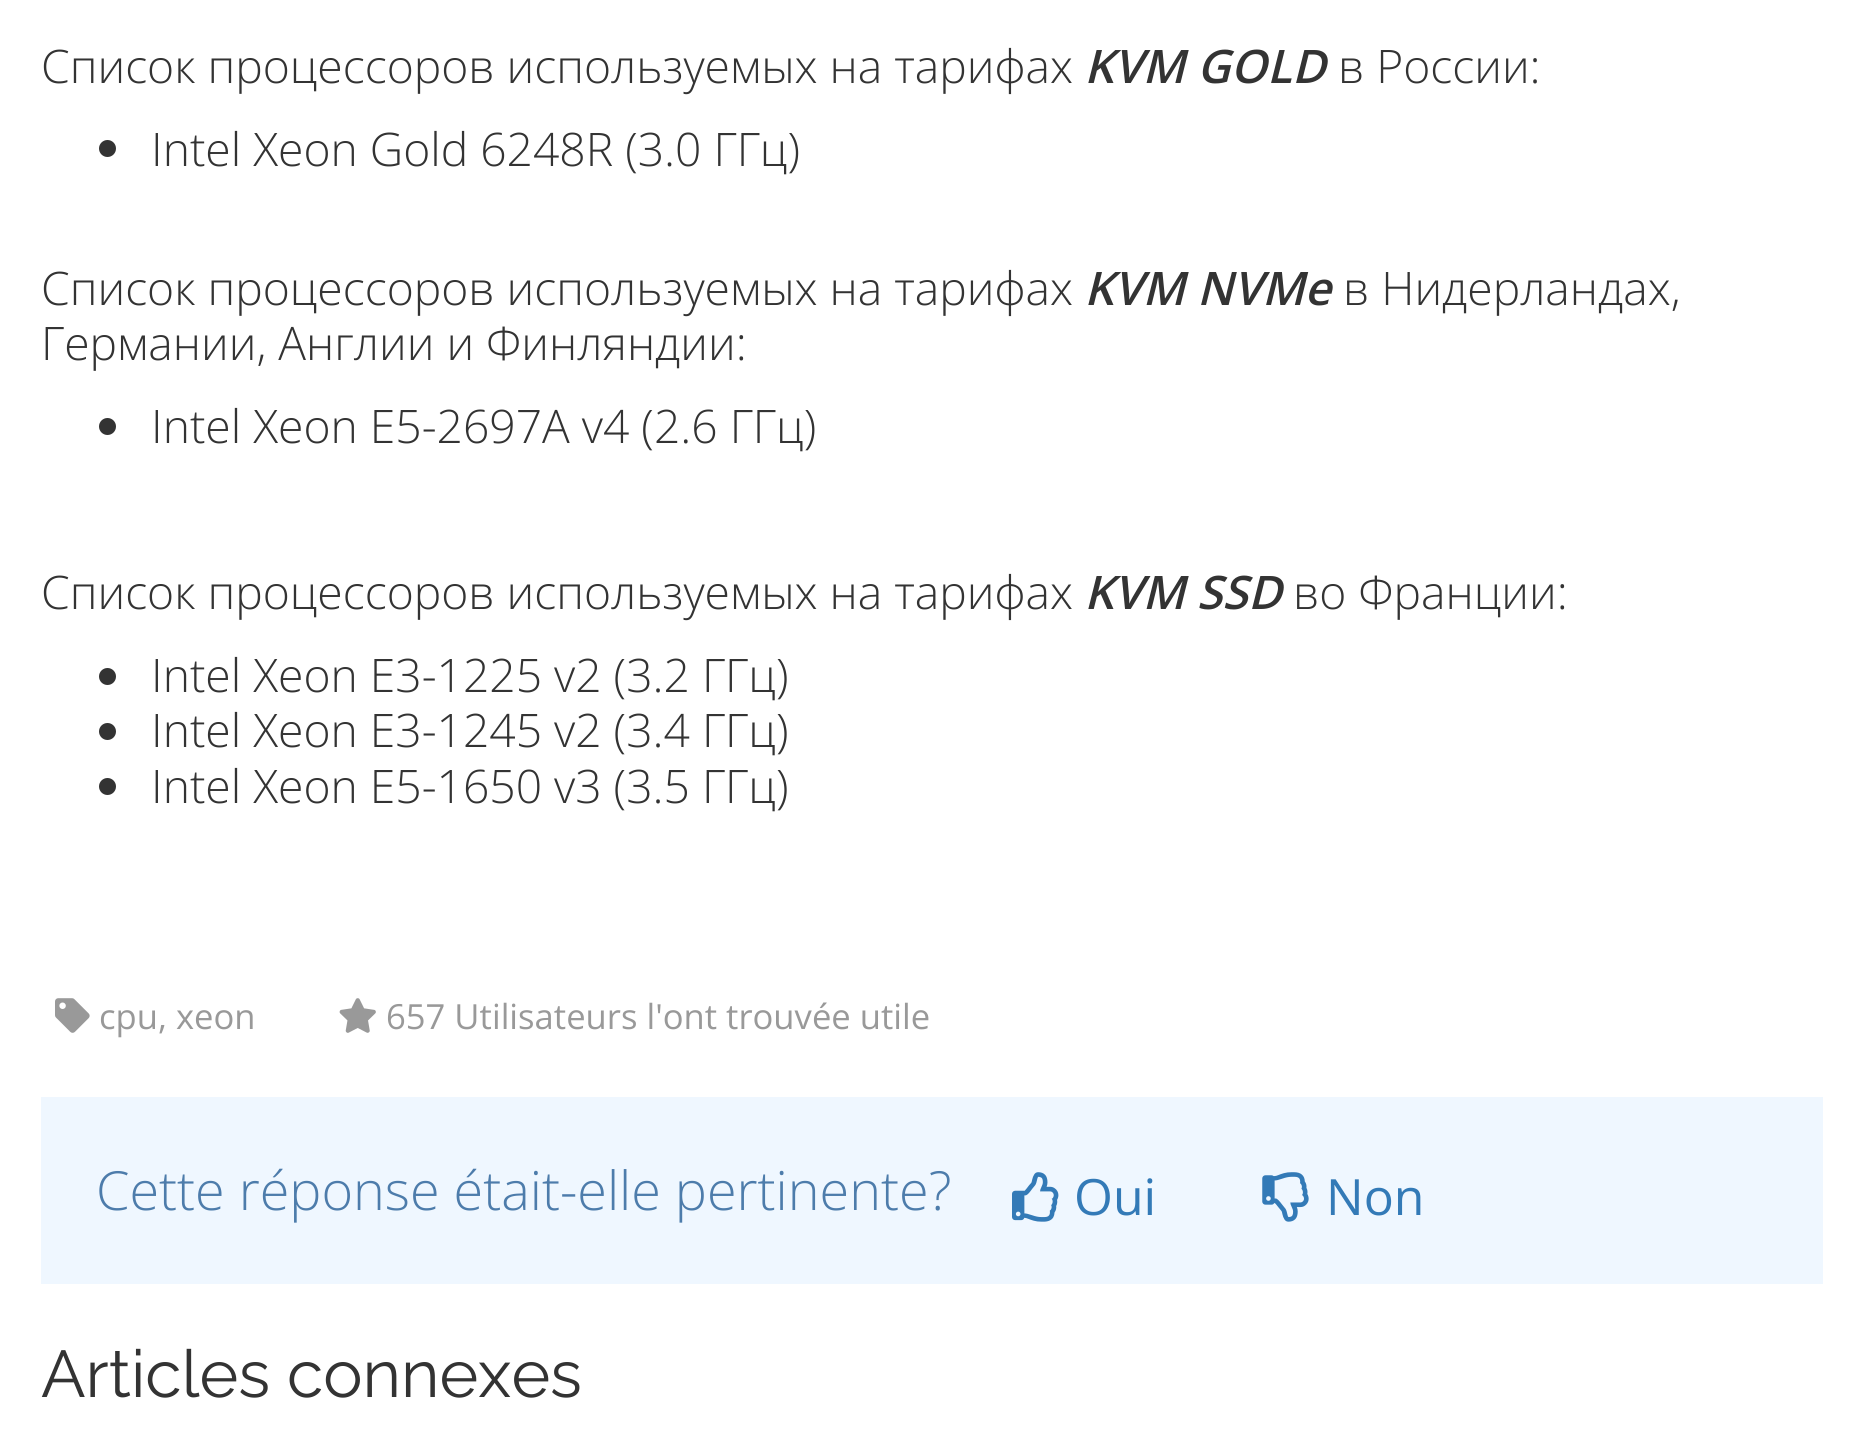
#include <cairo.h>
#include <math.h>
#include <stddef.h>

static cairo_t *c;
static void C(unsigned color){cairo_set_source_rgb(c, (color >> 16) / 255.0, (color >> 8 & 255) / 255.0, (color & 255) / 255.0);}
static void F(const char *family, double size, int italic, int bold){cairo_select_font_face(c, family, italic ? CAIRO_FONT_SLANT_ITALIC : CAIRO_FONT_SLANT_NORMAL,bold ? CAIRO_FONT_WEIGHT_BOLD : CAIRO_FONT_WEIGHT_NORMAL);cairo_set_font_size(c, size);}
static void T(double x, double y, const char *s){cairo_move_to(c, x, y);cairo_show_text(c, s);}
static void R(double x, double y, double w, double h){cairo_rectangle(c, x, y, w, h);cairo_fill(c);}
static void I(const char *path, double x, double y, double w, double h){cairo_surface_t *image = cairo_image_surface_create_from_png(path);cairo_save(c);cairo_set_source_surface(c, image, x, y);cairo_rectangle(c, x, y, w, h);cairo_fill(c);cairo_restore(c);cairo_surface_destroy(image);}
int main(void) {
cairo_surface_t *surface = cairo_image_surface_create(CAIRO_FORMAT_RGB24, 1863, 1432);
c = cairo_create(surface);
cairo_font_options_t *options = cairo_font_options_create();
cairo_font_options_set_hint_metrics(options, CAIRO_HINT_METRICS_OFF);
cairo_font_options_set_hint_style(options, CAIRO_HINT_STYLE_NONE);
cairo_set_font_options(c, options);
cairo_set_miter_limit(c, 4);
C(0xffffff);
cairo_paint(c);
F("Open Sans Light",46.2,0,0);
C(0x333333);
T(41,83,"Список процессоров используемых на тарифах");
F("Open Sans SemiBold",46.2,1,0);
T(1084,83,"KVM GOLD");
F("Open Sans Light",46.2,0,0);
T(1338,83,"в России:");
cairo_new_path(c);
cairo_arc(c,107.5,148.5,8.5,0,2 * M_PI);
cairo_fill(c);
T(151,166,"Intel Xeon Gold 6248R (3.0 ГГц)");
T(41,305,"Список процессоров используемых на тарифах");
F("Open Sans SemiBold",46.2,1,0);
T(1084,305,"KVM NVMe");
F("Open Sans Light",46.2,0,0);
T(1343,305,"в Нидерландах,");
T(41,360,"Германии, Англии и Финляндии:");
cairo_new_path(c);
cairo_arc(c,107.5,426.5,8.5,0,2 * M_PI);
cairo_fill(c);
T(151,443,"Intel Xeon E5-2697A v4 (2.6 ГГц)");
T(41,609,"Список процессоров используемых на тарифах");
F("Open Sans SemiBold",46.2,1,0);
T(1084,609,"KVM SSD");
F("Open Sans Light",46.2,0,0);
T(1293,609,"во Франции:");
cairo_new_path(c);
cairo_arc(c,107.5,676.5,8.5,0,2 * M_PI);
cairo_fill(c);
T(151,692,"Intel Xeon E3-1225 v2 (3.2 ГГц)");
cairo_new_path(c);
cairo_arc(c,107.5,731.5,8.5,0,2 * M_PI);
cairo_fill(c);
T(151,747,"Intel Xeon E3-1245 v2 (3.4 ГГц)");
cairo_new_path(c);
cairo_arc(c,107.5,786.5,8.5,0,2 * M_PI);
cairo_fill(c);
T(151,803,"Intel Xeon E5-1650 v3 (3.5 ГГц)");
I("1.png",55,998,35,35);
F("Open Sans",34.6,0,0);
C(0x999999);
T(99,1029,"cpu, xeon");
I("2.png",339,998,37,35);
T(386,1029,"657 Utilisateurs l'ont trouvée utile");
C(0xeff7ff);
R(41,1097,1782,187);
F("Open Sans Light",53.9,0,0);
C(0x4d7cab);
T(96,1210,"Cette réponse était-elle pertinente?");
I("3.png",1012,1172,47,50);
F("Open Sans",50,0,0);
C(0x337ab7);
T(1074,1215,"Oui");
I("4.png",1262,1172,47,50);
T(1326,1215,"Non");
F("Raleway",66,0,0);
C(0x333333);
T(41,1397,"Articles connexes");
cairo_surface_write_to_png(surface, "o.png");
cairo_font_options_destroy(options);
cairo_destroy(c);
cairo_surface_destroy(surface);
return 0;
}
